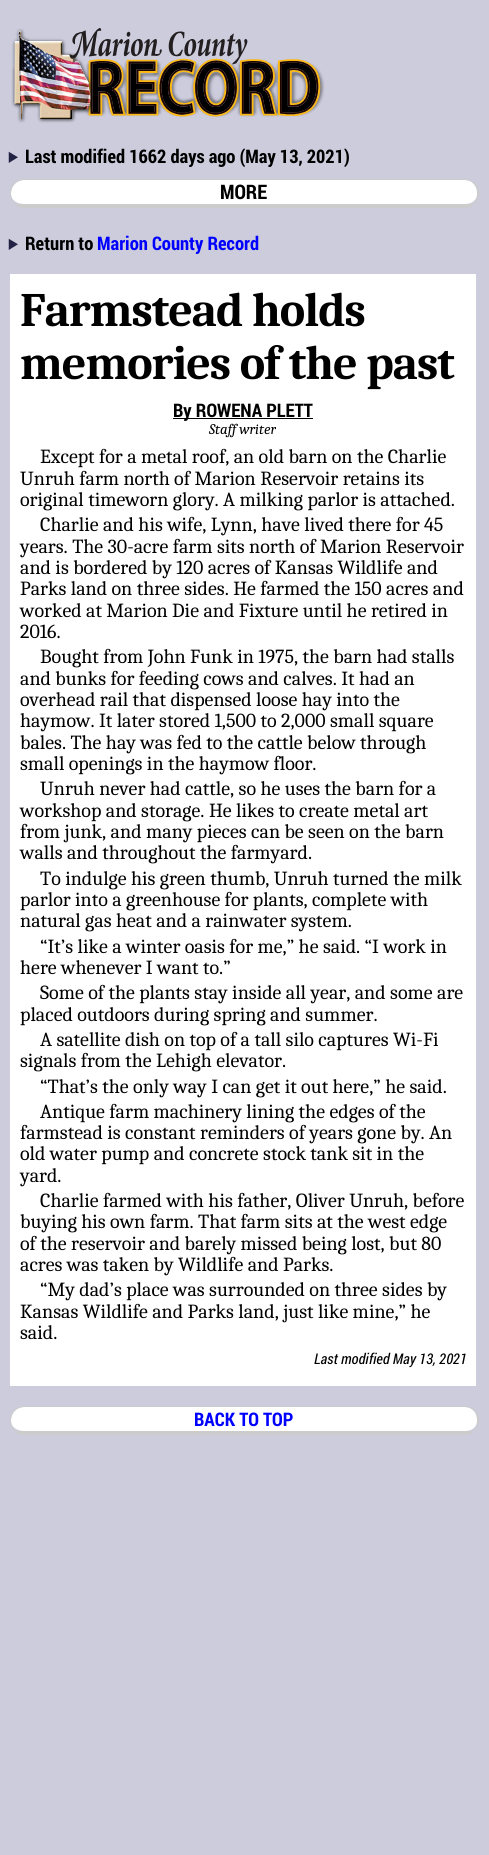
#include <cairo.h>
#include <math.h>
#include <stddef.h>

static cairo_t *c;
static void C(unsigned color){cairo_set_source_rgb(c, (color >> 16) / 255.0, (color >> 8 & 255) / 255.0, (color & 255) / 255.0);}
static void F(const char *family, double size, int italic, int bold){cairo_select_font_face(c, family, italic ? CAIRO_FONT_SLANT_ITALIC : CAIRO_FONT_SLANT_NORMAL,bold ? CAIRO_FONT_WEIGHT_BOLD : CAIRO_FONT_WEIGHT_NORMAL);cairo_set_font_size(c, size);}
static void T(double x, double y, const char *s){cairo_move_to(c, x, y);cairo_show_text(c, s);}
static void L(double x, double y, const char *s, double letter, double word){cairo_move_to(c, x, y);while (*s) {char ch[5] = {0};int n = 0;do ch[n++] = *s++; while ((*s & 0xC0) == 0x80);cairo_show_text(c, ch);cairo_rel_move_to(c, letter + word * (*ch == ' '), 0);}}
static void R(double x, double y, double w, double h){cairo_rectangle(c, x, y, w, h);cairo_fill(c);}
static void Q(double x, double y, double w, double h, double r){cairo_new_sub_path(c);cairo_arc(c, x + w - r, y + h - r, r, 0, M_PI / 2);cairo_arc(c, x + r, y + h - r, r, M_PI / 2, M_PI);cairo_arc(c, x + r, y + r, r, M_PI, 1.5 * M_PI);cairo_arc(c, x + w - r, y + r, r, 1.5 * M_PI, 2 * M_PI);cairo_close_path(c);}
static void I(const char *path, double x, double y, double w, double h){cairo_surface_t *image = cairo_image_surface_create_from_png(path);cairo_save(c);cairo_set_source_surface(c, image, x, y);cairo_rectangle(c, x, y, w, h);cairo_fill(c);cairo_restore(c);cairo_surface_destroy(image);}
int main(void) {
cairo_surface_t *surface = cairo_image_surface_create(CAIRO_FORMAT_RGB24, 489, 1855);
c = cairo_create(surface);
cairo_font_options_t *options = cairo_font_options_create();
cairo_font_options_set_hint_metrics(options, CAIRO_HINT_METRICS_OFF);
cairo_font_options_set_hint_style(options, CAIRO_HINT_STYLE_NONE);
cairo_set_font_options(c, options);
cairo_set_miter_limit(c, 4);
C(0xccccdd);
cairo_paint(c);
I("1.png",11,28,314,95);
I("2.png",8,151,10,12);
F("Roboto Condensed",18.7,0,1);
C(0x000000);
T(25,163,"Last modified 1662 days ago (May 13, 2021)");
C(0xffffff);
cairo_new_path(c);
cairo_move_to(c,24,180);
cairo_line_to(c,465,180);
cairo_curve_to(c,472,180,477,186,477,193);
cairo_line_to(c,477,194);
cairo_curve_to(c,477,200,472,204,465,204);
cairo_line_to(c,24,204);
cairo_curve_to(c,17,204,11,200,11,194);
cairo_line_to(c,11,193);
cairo_curve_to(c,11,186,17,180,24,180);
cairo_close_path(c);
cairo_fill(c);
Q(10.5,179.5,468,28,13.5);
C(0xcccccc);
cairo_set_line_width(c,1);
cairo_stroke(c);
R(477,186,1,15);
R(17,204,455,3);
F("Roboto Condensed",20,0,1);
C(0x000000);
T(220,199,"MORE");
I("2.png",8,238,10,12);
F("Roboto Condensed",18.7,0,1);
T(25,250,"Return to");
C(0x0000ff);
T(97,250,"Marion County Record");
C(0xffffff);
R(10,274,466,1112);
F("Caladea",48,0,1);
C(0x000000);
L(20,326,"Farmstead holds",-1,0);
L(20,379,"memories of the past",-1,0);
R(173,418,140,1);
F("Roboto Condensed",18.7,0,1);
T(173,417,"By ROWENA PLETT");
F("Caladea",14.75,1,0);
T(209,434,"Staff writer");
F("Caladea",20,0,0);
T(40,463,"Except for a metal roof, an old barn on the Charlie");
T(20,485,"Unruh farm north of Marion Reservoir retains its");
T(20,506,"original timeworn glory. A milking parlor is attached.");
T(40,531,"Charlie and his wife, Lynn, have lived there for 45");
T(20,553,"years. The 30-acre farm sits north of Marion Reservoir");
T(20,574,"and is bordered by 120 acres of Kansas Wildlife and");
T(20,595,"Parks land on three sides. He farmed the 150 acres and");
T(20,617,"worked at Marion Die and Fixture until he retired in");
T(20,638,"2016.");
T(40,663,"Bought from John Funk in 1975, the barn had stalls");
T(20,685,"and bunks for feeding cows and calves. It had an");
T(20,706,"overhead rail that dispensed loose hay into the");
T(20,727,"haymow. It later stored 1,500 to 2,000 small square");
T(20,749,"bales. The hay was fed to the cattle below through");
T(20,770,"small openings in the haymow floor.");
T(40,795,"Unruh never had cattle, so he uses the barn for a");
T(20,817,"workshop and storage. He likes to create metal art");
T(20,838,"from junk, and many pieces can be seen on the barn");
T(20,859,"walls and throughout the farmyard.");
T(40,885,"To indulge his green thumb, Unruh turned the milk");
T(20,906,"parlor into a greenhouse for plants, complete with");
T(20,927,"natural gas heat and a rainwater system.");
T(40,953,"“It’s like a winter oasis for me,” he said. “I work in");
T(20,974,"here whenever I want to.”");
T(40,999,"Some of the plants stay inside all year, and some are");
T(20,1021,"placed outdoors during spring and summer.");
T(40,1046,"A satellite dish on top of a tall silo captures Wi-Fi");
T(20,1067,"signals from the Lehigh elevator.");
T(40,1093,"“That’s the only way I can get it out here,” he said.");
T(40,1118,"Antique farm machinery lining the edges of the");
T(20,1139,"farmstead is constant reminders of years gone by. An");
T(20,1160,"old water pump and concrete stock tank sit in the");
T(20,1182,"yard.");
T(40,1207,"Charlie farmed with his father, Oliver Unruh, before");
T(20,1228,"buying his own farm. That farm sits at the west edge");
T(20,1250,"of the reservoir and barely missed being lost, but 80");
T(20,1271,"acres was taken by Wildlife and Parks.");
T(40,1296,"“My dad’s place was surrounded on three sides by");
T(20,1318,"Kansas Wildlife and Parks land, just like mine,” he");
T(20,1339,"said.");
F("Roboto Condensed",14.75,1,0);
T(314,1364,"Last modified May 13, 2021");
C(0xffffff);
cairo_new_path(c);
cairo_move_to(c,24,1407);
cairo_line_to(c,465,1407);
cairo_curve_to(c,472,1407,477,1413,477,1420);
cairo_line_to(c,477,1421);
cairo_curve_to(c,477,1427,472,1431,465,1431);
cairo_line_to(c,24,1431);
cairo_curve_to(c,17,1431,11,1427,11,1421);
cairo_line_to(c,11,1420);
cairo_curve_to(c,11,1413,17,1407,24,1407);
cairo_close_path(c);
cairo_fill(c);
Q(10.5,1406.5,468,28,13.5);
C(0xcccccc);
cairo_stroke(c);
R(477,1413,1,15);
R(17,1431,455,3);
F("Roboto Condensed",18.7,0,1);
C(0x0000ff);
T(194,1426,"BACK TO TOP");
cairo_surface_write_to_png(surface, "o.png");
cairo_font_options_destroy(options);
cairo_destroy(c);
cairo_surface_destroy(surface);
return 0;
}
